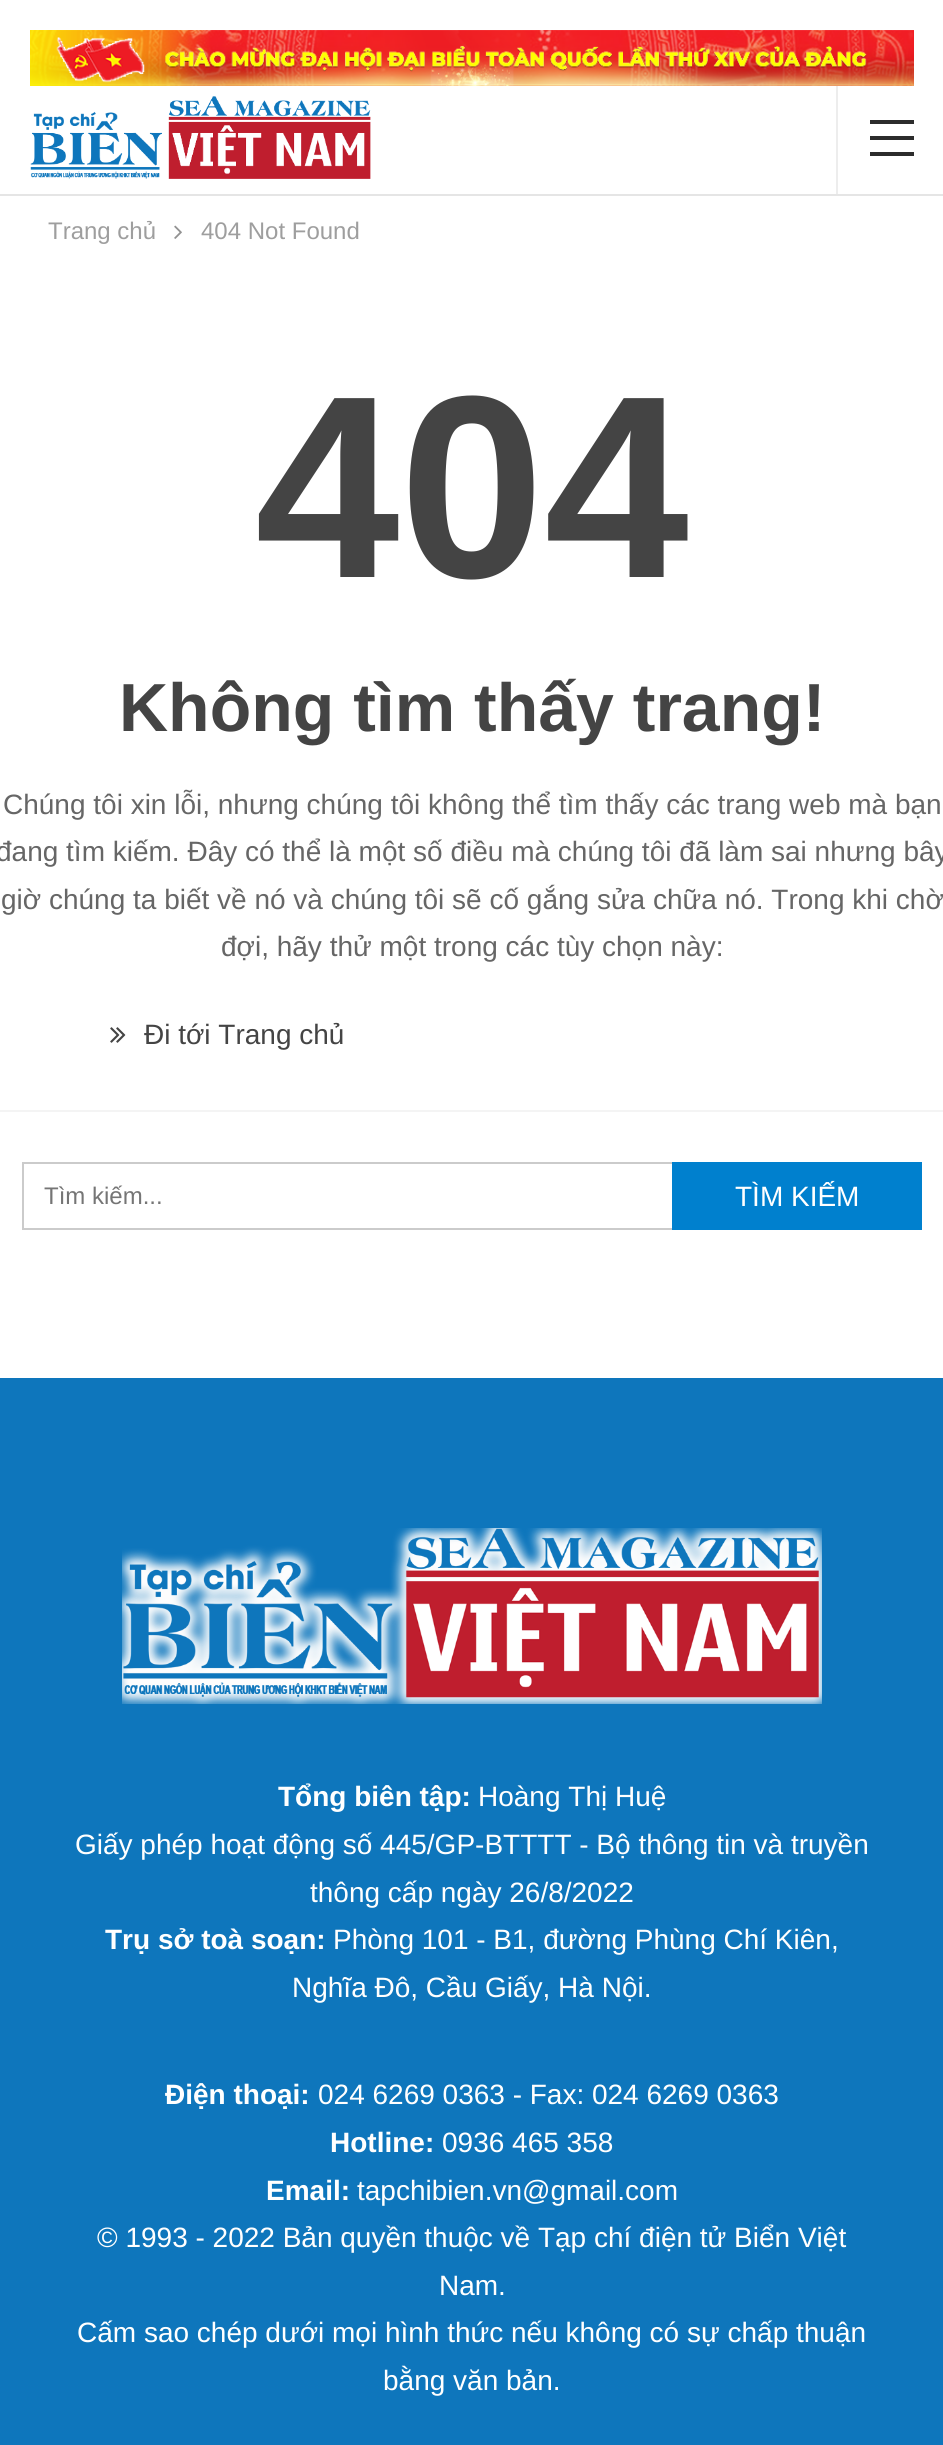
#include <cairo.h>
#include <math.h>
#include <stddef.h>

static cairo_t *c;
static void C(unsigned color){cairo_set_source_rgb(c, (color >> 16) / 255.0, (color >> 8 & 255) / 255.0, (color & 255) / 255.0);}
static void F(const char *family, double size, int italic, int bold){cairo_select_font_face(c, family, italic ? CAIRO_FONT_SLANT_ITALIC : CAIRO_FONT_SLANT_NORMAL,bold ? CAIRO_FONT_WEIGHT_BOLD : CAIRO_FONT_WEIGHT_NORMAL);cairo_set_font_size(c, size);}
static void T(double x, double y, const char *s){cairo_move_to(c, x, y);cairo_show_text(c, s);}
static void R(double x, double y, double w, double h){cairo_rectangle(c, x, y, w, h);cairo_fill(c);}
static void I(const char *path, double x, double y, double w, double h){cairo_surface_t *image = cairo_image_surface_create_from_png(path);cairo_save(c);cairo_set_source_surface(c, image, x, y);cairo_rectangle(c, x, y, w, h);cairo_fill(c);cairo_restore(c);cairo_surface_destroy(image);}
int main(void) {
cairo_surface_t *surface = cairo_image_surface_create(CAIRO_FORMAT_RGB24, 943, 2445);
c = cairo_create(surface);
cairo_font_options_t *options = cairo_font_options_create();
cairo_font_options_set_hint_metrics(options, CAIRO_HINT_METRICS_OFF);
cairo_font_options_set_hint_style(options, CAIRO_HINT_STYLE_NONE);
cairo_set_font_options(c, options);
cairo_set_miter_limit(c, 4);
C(0xffffff);
cairo_paint(c);
I("1.png",30,30,884,56);
C(0xe5e5e5);
R(0,194,943,2);
I("2.png",30,96,341,83);
C(0xededed);
R(836,86,2,108);
C(0x2c2c2c);
R(870,136,44,4);
R(870,120,44,4);
R(870,152,44,4);
F("Liberation Sans",24,0,0);
C(0x9e9e9e);
T(48,239,"Trang chủ");
I("3.png",174,225,8,14);
T(201,239,"404 Not Found");
F("Liberation Sans",260,0,1);
C(0x444444);
T(255,577,"404");
F("Liberation Sans",68,0,1);
T(119,731,"Không tìm thấy trang!");
F("Liberation Sans",28,0,0);
C(0x666666);
T(3,814,"Chúng tôi xin lỗi, nhưng chúng tôi không thể tìm thấy các trang web mà bạn");
T(-4,861,"đang tìm kiếm. Đây có thể là một số điều mà chúng tôi đã làm sai nhưng bây");
T(1,909,"giờ chúng ta biết về nó và chúng tôi sẽ cố gắng sửa chữa nó. Trong khi chờ");
T(221,956,"đợi, hãy thử một trong các tùy chọn này:");
I("4.png",110,1027,16,16);
C(0x444444);
T(144,1044,"Đi tới Trang chủ");
C(0xf4f4f4);
R(0,1110,943,2);
cairo_rectangle(c,23,1163,898,66);
C(0xcbcbcb);
cairo_stroke(c);
F("Liberation Sans",24,0,0);
C(0x757575);
T(44,1204,"Tìm kiếm...");
C(0x0080ce);
R(672,1162,250,68);
F("Liberation Sans",28,0,0);
C(0xffffff);
T(735,1206,"TÌM KIẾM");
C(0x0e76bc);
R(0,1378,943,1067);
I("5.png",122,1528,700,176);
F("Liberation Sans",28,0,1);
C(0xffffff);
T(278,1806,"Tổng biên tập:");
F("Liberation Sans",28,0,0);
T(478,1806,"Hoàng Thị Huệ");
T(75,1854,"Giấy phép hoạt động số 445/GP-BTTTT - Bộ thông tin và truyền");
T(310,1902,"thông cấp ngày 26/8/2022");
F("Liberation Sans",28,0,1);
T(105,1949,"Trụ sở toà soạn:");
F("Liberation Sans",28,0,0);
T(333,1949,"Phòng 101 - B1, đường Phùng Chí Kiên,");
T(292,1997,"Nghĩa Đô, Cầu Giấy, Hà Nội.");
F("Liberation Sans",28,0,1);
T(165,2104,"Điện thoại:");
F("Liberation Sans",28,0,0);
T(318,2104,"024 6269 0363 - Fax: 024 6269 0363");
F("Liberation Sans",28,0,1);
T(330,2152,"Hotline:");
F("Liberation Sans",28,0,0);
T(442,2152,"0936 465 358");
F("Liberation Sans",28,0,1);
T(266,2200,"Email:");
F("Liberation Sans",28,0,0);
T(357,2200,"tapchibien.vn@gmail.com");
T(97,2247,"© 1993 - 2022 Bản quyền thuộc về Tạp chí điện tử Biển Việt");
T(439,2295,"Nam.");
T(77,2342,"Cấm sao chép dưới mọi hình thức nếu không có sự chấp thuận");
T(383,2390,"bằng văn bản.");
cairo_surface_write_to_png(surface, "o.png");
cairo_font_options_destroy(options);
cairo_destroy(c);
cairo_surface_destroy(surface);
return 0;
}
